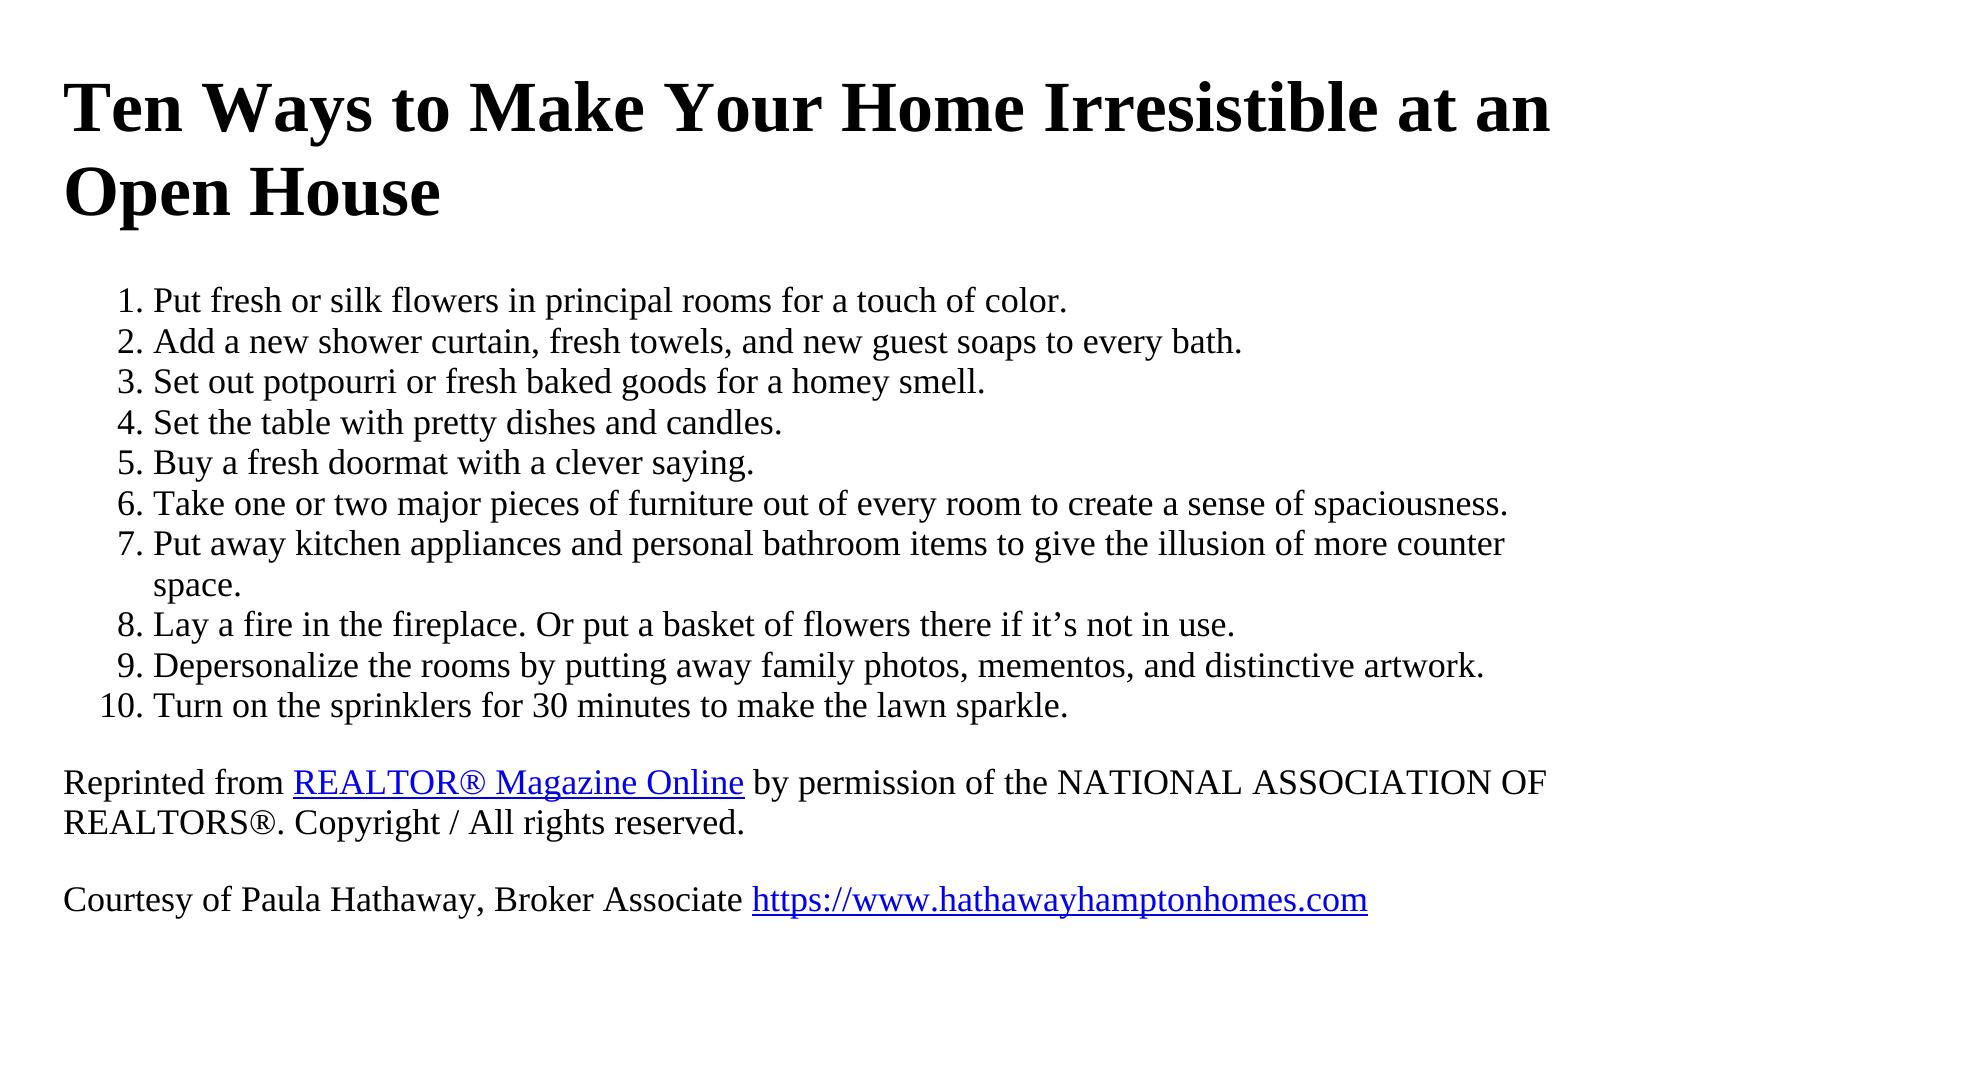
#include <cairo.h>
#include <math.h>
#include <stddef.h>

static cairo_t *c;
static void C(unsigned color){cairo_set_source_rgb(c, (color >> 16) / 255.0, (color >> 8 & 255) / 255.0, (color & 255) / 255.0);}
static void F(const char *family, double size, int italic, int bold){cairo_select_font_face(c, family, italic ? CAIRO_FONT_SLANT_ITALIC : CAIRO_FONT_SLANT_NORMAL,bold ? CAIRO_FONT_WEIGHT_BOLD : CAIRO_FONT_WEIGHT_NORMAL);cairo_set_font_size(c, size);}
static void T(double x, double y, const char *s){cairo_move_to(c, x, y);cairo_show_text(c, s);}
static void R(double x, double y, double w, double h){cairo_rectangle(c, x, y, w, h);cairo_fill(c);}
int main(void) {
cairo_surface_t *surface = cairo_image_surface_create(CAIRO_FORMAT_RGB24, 1984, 1083);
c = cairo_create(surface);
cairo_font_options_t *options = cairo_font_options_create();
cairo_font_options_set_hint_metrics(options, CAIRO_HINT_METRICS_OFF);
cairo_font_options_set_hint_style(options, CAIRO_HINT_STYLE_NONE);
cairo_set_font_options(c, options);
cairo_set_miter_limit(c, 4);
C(0xffffff);
cairo_paint(c);
F("Liberation Serif",72,0,1);
C(0x000000);
T(63,131,"Ten Ways to Make Your Home Irresistible at an");
T(63,215,"Open House");
F("Liberation Serif",36,0,0);
T(117,312,"1. Put fresh or silk flowers in principal rooms for a touch of color.");
T(117,353,"2. Add a new shower curtain, fresh towels, and new guest soaps to every bath.");
T(117,393,"3. Set out potpourri or fresh baked goods for a homey smell.");
T(117,434,"4. Set the table with pretty dishes and candles.");
T(117,474,"5. Buy a fresh doormat with a clever saying.");
T(117,515,"6. Take one or two major pieces of furniture out of every room to create a sense of spaciousness.");
T(117,555,"7. Put away kitchen appliances and personal bathroom items to give the illusion of more counter");
T(153,596,"space.");
T(117,636,"8. Lay a fire in the fireplace. Or put a basket of flowers there if it’s not in use.");
T(117,677,"9. Depersonalize the rooms by putting away family photos, mementos, and distinctive artwork.");
T(99,717,"10. Turn on the sprinklers for 30 minutes to make the lawn sparkle.");
T(63,794,"Reprinted from");
C(0x0000ee);
R(293,797,452,2);
T(293,794,"REALTOR® Magazine Online");
C(0x000000);
T(753,794,"by permission of the NATIONAL ASSOCIATION OF");
T(63,834,"REALTORS®. Copyright / All rights reserved.");
T(63,911,"Courtesy of Paula Hathaway, Broker Associate");
C(0x0000ee);
R(752,914,616,2);
T(752,911,"https://www.hathawayhamptonhomes.com");
cairo_surface_write_to_png(surface, "o.png");
cairo_font_options_destroy(options);
cairo_destroy(c);
cairo_surface_destroy(surface);
return 0;
}
